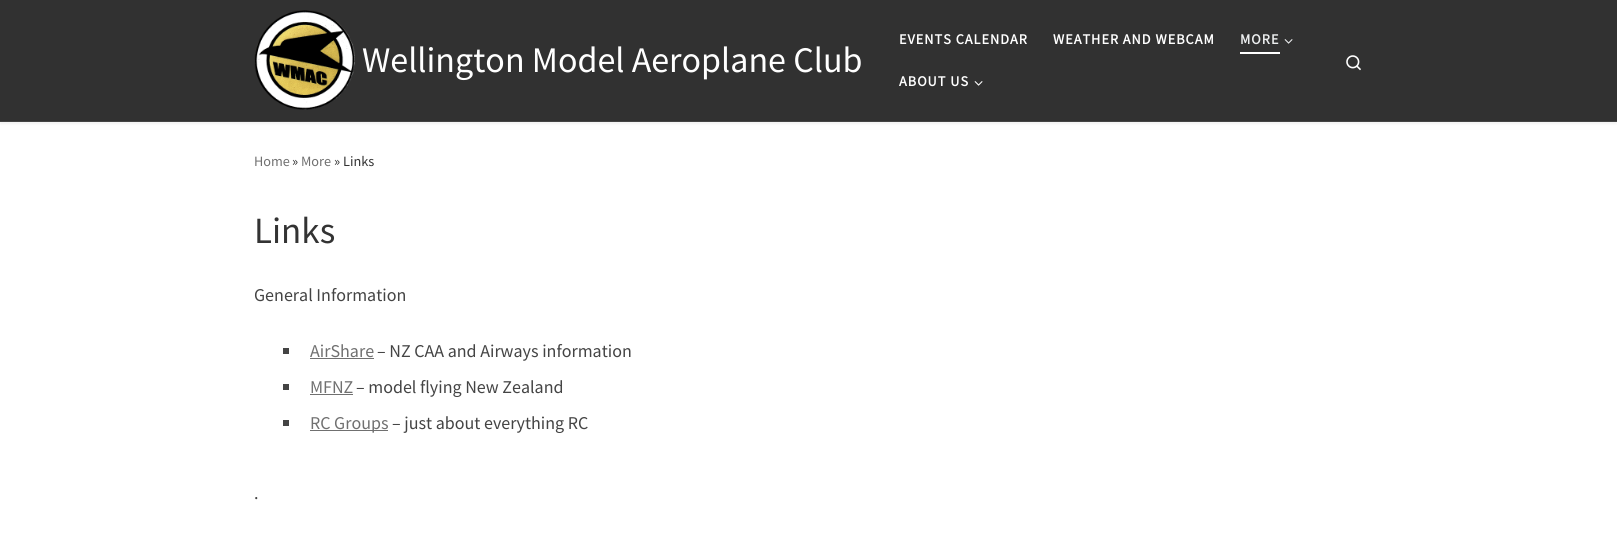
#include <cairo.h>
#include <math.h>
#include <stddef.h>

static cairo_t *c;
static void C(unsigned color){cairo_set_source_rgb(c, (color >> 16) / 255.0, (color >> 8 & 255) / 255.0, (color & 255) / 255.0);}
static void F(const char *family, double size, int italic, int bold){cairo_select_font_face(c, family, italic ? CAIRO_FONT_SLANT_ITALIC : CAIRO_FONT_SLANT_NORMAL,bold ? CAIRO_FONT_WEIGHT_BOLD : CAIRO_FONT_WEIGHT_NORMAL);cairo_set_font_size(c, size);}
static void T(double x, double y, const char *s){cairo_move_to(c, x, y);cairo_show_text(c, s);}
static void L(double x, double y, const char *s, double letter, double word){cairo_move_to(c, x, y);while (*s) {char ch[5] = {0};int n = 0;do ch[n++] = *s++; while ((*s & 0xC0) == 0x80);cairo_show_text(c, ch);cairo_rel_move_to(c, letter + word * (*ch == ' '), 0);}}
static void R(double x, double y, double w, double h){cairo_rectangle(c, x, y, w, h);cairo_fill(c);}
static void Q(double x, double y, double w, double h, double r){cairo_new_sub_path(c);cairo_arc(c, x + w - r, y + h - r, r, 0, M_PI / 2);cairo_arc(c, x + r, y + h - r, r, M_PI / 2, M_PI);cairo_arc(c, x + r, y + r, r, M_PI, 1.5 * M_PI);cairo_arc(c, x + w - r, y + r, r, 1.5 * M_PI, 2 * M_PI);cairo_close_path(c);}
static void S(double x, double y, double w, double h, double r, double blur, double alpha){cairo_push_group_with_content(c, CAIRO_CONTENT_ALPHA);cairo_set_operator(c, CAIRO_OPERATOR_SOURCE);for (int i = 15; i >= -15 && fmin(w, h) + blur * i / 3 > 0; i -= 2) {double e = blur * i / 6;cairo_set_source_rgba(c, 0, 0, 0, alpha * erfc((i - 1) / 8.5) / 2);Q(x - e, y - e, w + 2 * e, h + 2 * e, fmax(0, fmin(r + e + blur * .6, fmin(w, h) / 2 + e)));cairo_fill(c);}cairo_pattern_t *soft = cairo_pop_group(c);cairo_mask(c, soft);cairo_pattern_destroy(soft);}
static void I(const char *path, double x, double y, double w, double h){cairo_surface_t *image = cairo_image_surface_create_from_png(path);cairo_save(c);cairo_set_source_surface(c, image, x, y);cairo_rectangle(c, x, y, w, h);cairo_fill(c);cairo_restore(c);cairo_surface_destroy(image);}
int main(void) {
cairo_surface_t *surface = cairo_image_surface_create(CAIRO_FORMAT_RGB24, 1617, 546);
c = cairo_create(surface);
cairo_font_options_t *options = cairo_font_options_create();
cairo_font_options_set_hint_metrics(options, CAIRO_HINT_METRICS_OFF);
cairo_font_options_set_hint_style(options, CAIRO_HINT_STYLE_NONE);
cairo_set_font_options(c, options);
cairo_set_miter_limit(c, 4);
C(0xffffff);
cairo_paint(c);
C(0x666666);
S(0,2,1617,122,0,1,.08);
C(0x313131);
R(0,0,1617,121);
C(0x444444);
R(0,121,1617,1);
I("1.png",254,10,101,100);
F("Source Sans Pro",36,0,0);
C(0xffffff);
T(362,72,"Wellington Model Aeroplane Club");
F("Source Sans Pro",14.25,0,1);
L(899,44,"EVENTS CALENDAR",1,0);
L(1053,44,"WEATHER AND WEBCAM",1,0);
C(0xeceeef);
L(1240,44,"MORE",1,0);
C(0xffffff);
R(1240,52,40,2);
I("2.png",1284,39,9,5);
L(899,86,"ABOUT US",1,0);
I("3.png",974,81,9,5);
I("4.png",1346,55,15,16);
F("Source Sans Pro",14.25,0,0);
C(0x707070);
T(254,166,"Home");
C(0x333333);
T(292,166,"»");
C(0x707070);
T(301,166,"More");
C(0x333333);
T(334,166,"» Links");
F("Source Sans Pro",37,0,0);
T(254,243,"Links");
F("Source Sans Pro",18,0,0);
C(0x444444);
T(254,301,"General Information");
R(283,348,6,6);
C(0x707070);
T(310,357,"AirShare");
R(310,358,64,1);
C(0x444444);
T(377,357,"– NZ CAA and Airways information");
R(283,384,6,6);
C(0x707070);
T(310,393,"MFNZ");
R(310,394,43,1);
C(0x444444);
T(356,393,"– model flying New Zealand");
R(283,420,6,6);
C(0x707070);
R(310,430,78,1);
T(310,429,"RC Groups");
C(0x444444);
T(392,429,"– just about everything RC");
T(254,499,".");
cairo_surface_write_to_png(surface, "o.png");
cairo_font_options_destroy(options);
cairo_destroy(c);
cairo_surface_destroy(surface);
return 0;
}
